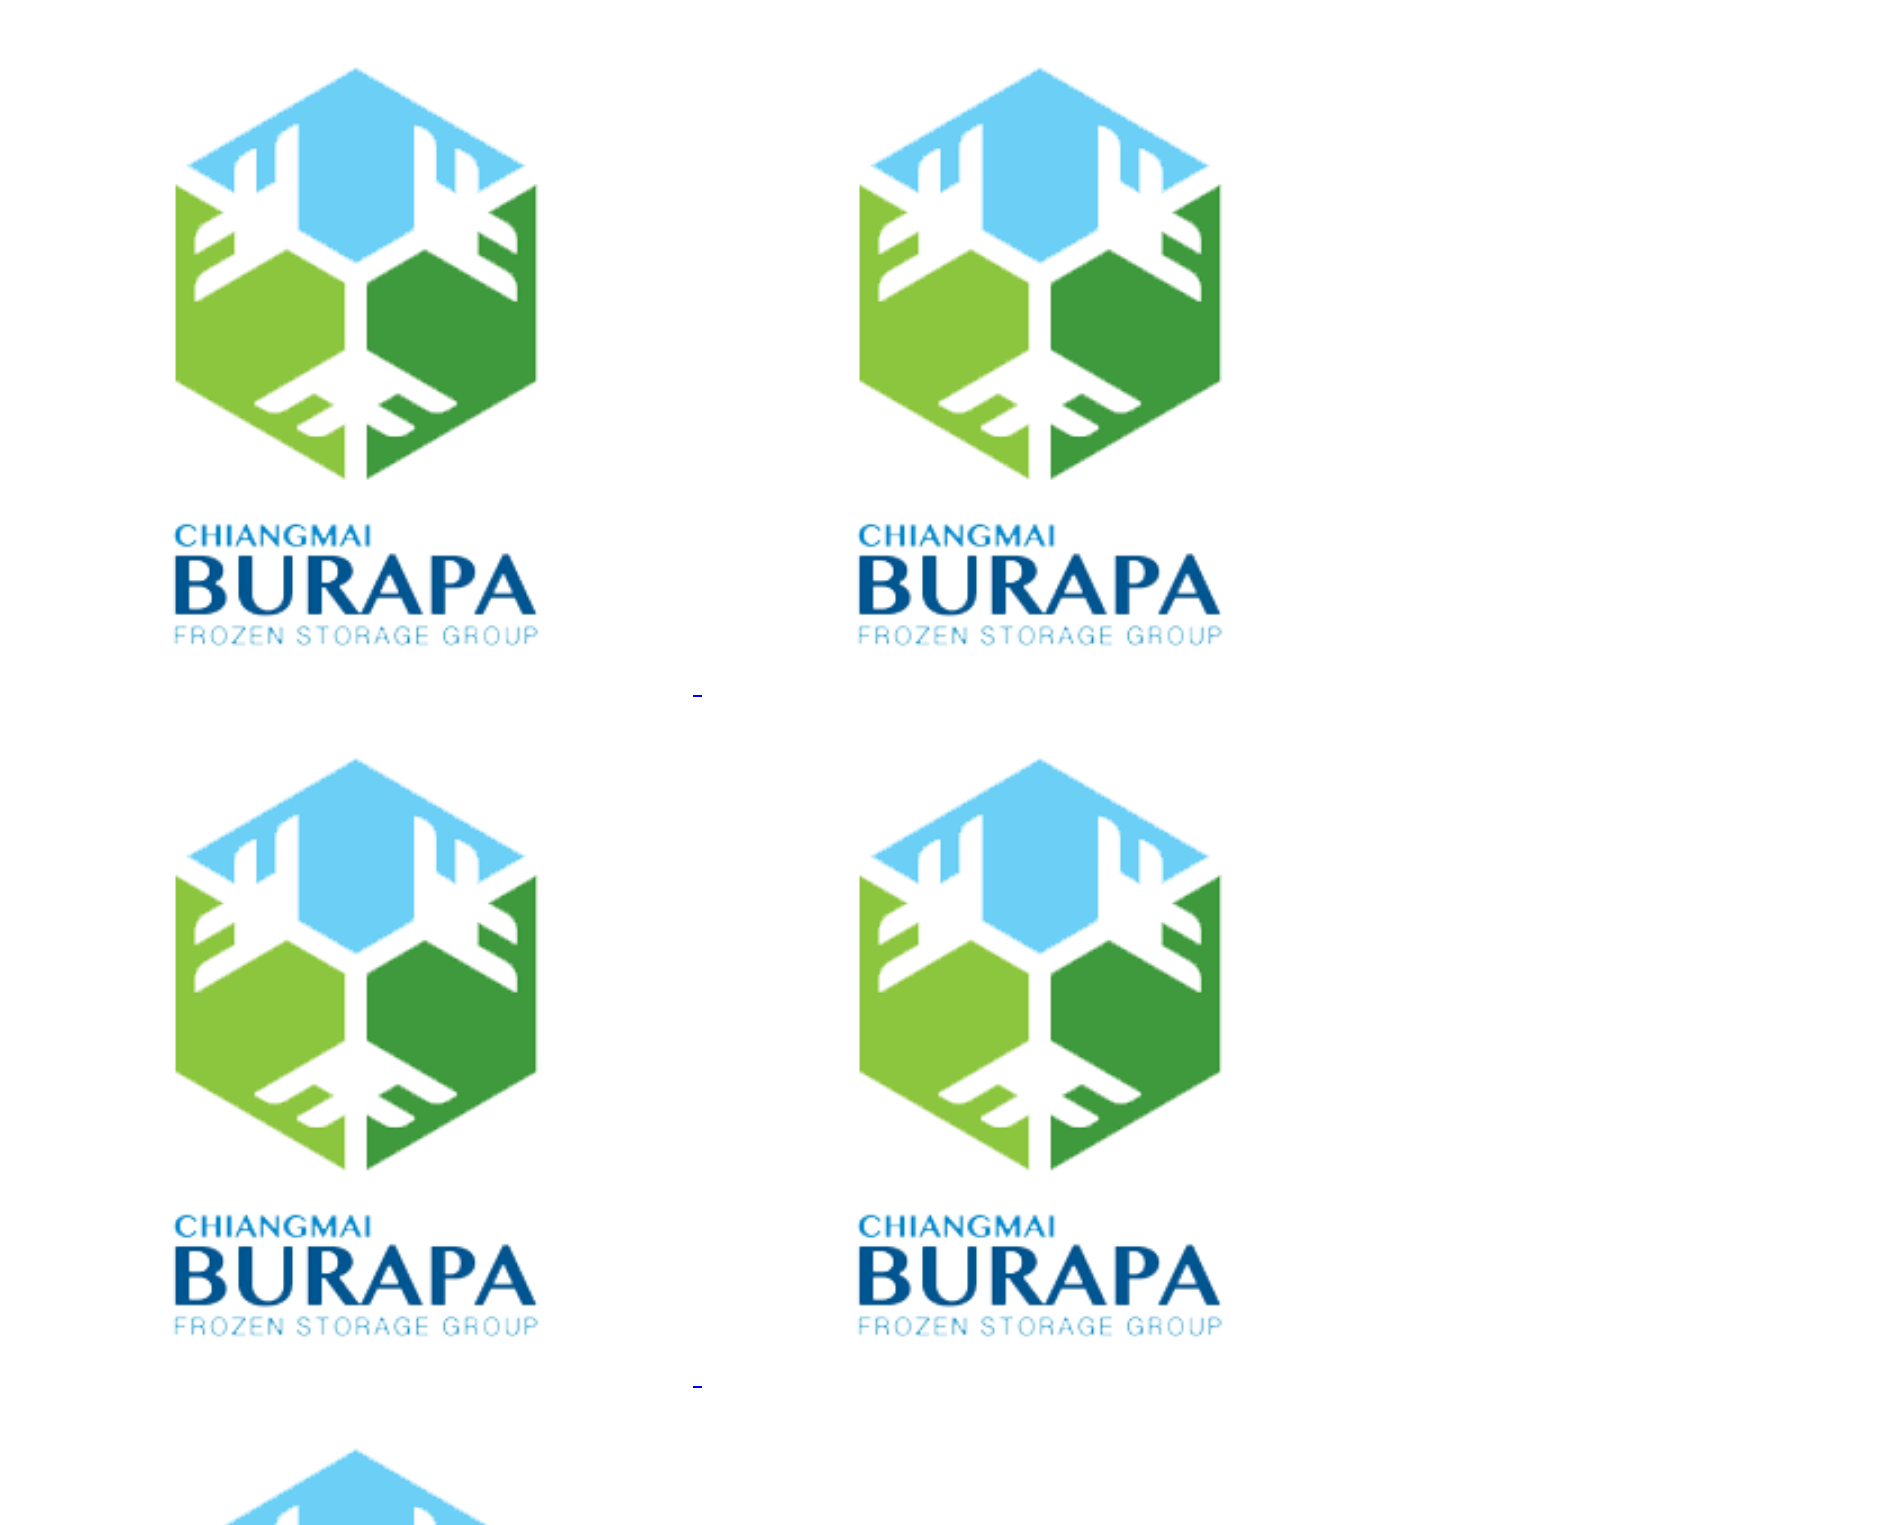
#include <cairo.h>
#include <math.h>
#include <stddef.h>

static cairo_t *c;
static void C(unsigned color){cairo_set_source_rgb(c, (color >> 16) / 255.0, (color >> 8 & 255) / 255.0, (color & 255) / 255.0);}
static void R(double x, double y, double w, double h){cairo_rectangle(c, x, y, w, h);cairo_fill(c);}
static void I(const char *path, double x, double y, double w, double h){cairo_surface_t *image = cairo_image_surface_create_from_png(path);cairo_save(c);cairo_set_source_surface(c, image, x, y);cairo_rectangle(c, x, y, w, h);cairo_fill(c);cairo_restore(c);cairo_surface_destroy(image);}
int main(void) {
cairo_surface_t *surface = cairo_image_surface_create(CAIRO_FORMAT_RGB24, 1881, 1525);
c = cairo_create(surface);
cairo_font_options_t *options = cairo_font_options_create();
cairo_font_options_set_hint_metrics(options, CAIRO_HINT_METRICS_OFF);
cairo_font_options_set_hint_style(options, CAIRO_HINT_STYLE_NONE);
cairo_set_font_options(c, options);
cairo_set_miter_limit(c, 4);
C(0xffffff);
cairo_paint(c);
I("1.png",172,67,367,580);
I("2.png",856,67,367,580);
C(0x0000ee);
R(693,695,9,2);
I("3.png",172,757,367,581);
I("4.png",856,757,367,581);
R(693,1386,9,2);
I("5.png",223,1448,266,77);
cairo_surface_write_to_png(surface, "o.png");
cairo_font_options_destroy(options);
cairo_destroy(c);
cairo_surface_destroy(surface);
return 0;
}
